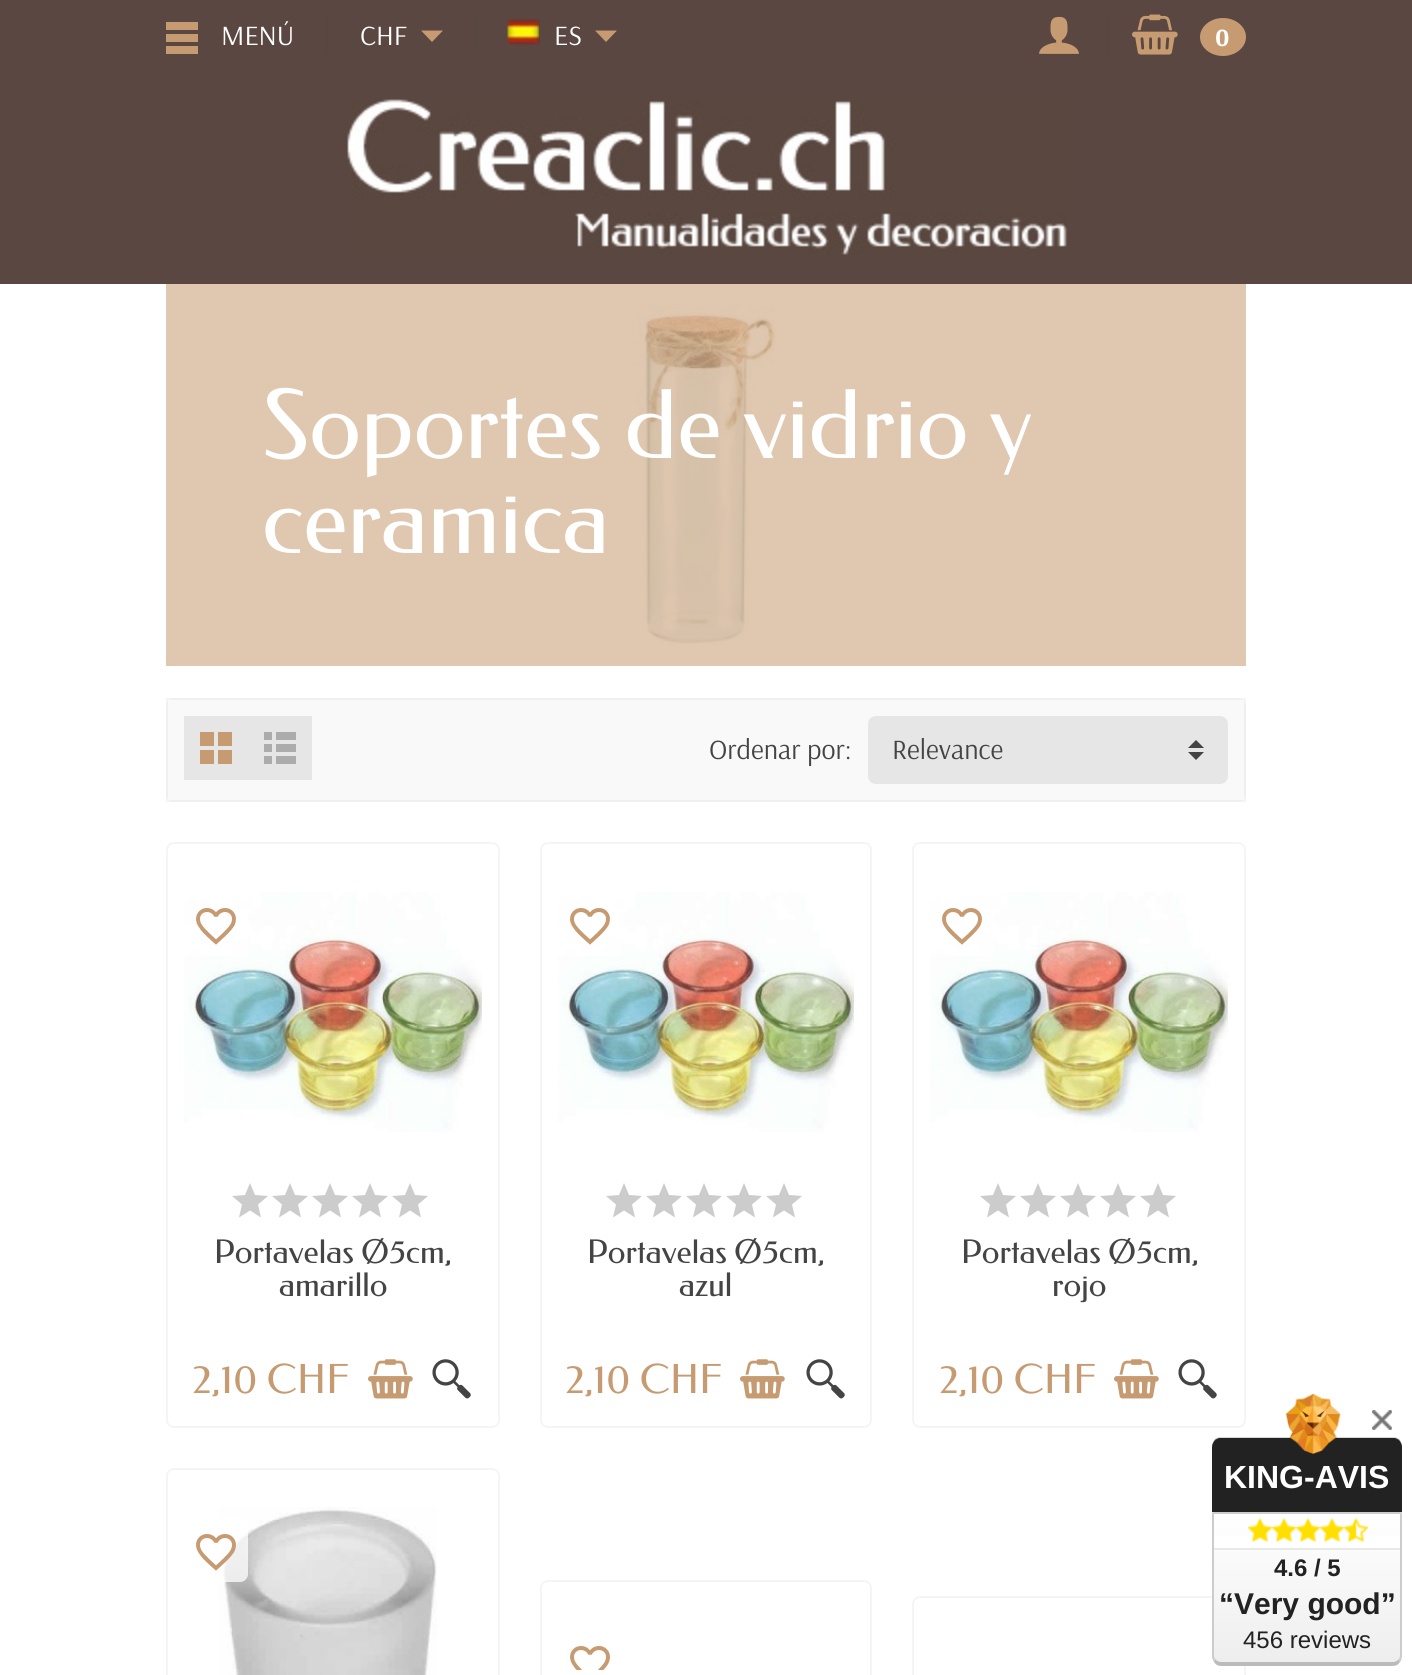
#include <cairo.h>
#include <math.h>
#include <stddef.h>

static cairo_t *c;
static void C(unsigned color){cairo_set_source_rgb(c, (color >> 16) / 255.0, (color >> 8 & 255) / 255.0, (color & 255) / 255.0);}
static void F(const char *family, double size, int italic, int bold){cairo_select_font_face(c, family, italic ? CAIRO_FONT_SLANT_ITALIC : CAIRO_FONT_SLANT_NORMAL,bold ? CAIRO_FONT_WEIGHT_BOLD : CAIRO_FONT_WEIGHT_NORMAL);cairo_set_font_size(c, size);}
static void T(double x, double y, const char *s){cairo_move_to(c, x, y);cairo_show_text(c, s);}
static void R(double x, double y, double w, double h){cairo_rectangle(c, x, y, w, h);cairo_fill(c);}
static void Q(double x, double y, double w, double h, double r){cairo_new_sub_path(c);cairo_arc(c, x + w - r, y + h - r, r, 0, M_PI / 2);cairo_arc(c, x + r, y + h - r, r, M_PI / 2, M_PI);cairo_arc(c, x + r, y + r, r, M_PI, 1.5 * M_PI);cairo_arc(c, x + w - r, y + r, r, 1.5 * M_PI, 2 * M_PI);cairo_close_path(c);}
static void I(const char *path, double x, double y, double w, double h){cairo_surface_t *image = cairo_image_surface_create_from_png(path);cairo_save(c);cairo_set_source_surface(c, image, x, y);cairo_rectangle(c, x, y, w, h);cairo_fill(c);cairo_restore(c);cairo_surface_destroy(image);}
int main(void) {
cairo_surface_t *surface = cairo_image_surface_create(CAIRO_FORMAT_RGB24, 1412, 1675);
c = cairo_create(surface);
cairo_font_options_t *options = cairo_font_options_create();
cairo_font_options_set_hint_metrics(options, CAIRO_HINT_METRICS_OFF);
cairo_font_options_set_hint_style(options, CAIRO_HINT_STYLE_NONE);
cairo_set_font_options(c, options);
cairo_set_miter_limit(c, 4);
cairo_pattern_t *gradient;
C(0xffffff);
cairo_paint(c);
C(0x5a4741);
R(0,0,1412,284);
I("1.png",347,99,721,156);
C(0x574741);
R(326,16,2,38);
I("2.png",166,22,32,32);
F("Arsenal",28,0,0);
C(0xffffff);
T(221,45,"MENÚ");
C(0x574741);
R(474,16,2,38);
C(0xffffff);
T(360,45,"CHF");
C(0xc69b72);
cairo_new_path(c);
cairo_move_to(c,421,30.5);
cairo_line_to(c,443,30.5);
cairo_line_to(c,432,42);
cairo_close_path(c);
cairo_fill(c);
I("3.png",507,19,33,26);
C(0xffffff);
T(554,45,"ES");
C(0xc69b72);
cairo_new_path(c);
cairo_move_to(c,595,30.5);
cairo_line_to(c,617,30.5);
cairo_line_to(c,606,42);
cairo_close_path(c);
cairo_fill(c);
I("4.png",1039,16,40,38);
C(0x574741);
R(1106,14,2,42);
I("5.png",1132,14,46,41);
C(0xc69b72);
cairo_new_path(c);
cairo_move_to(c,1223,18);
cairo_curve_to(c,1235.5,18,1246,26.5,1246,37);
cairo_curve_to(c,1246,47.5,1235.5,56,1223,56);
cairo_curve_to(c,1210.5,56,1200,47.5,1200,37);
cairo_curve_to(c,1200,26.5,1210.5,18,1223,18);
cairo_close_path(c);
cairo_fill(c);
F("Arsenal",25,0,1);
C(0xffffff);
T(1215,46,"0");
C(0xd4b495);
R(166,284,1080,382);
I("6.png",166,284,1080,382);
F("Federo",94.75,0,0);
C(0xffffff);
T(262,458,"Soportes de vidrio y");
T(262,553,"ceramica");
C(0xf9f9f9);
Q(166,698,1080,104,8);
cairo_fill(c);
cairo_rectangle(c,167,699,1078,102);
cairo_set_source_rgba(c,0,0,0,0.04);
cairo_stroke(c);
C(0xe6e6e6);
R(184,716,128,64);
I("7.png",200,732,32,32);
I("8.png",264,732,32,32);
F("Arsenal",28,0,0);
C(0x444444);
T(709,759,"Ordenar por:");
C(0xe6e6e6);
Q(868,716,360,68,8);
cairo_fill(c);
C(0x444444);
cairo_new_path(c);
cairo_move_to(c,1196,740);
cairo_line_to(c,1188,748);
cairo_line_to(c,1204,748);
cairo_close_path(c);
cairo_move_to(c,1196,760);
cairo_line_to(c,1188,752);
cairo_line_to(c,1204,752);
cairo_close_path(c);
cairo_fill(c);
T(892,759,"Relevance");
Q(167,843,332,584,7);
C(0xf5f5f5);
cairo_stroke(c);
I("9.png",184,892,298,240);
cairo_set_source_rgba(c,1,1,1,0.75);
cairo_new_path(c);
cairo_move_to(c,184,892);
cairo_line_to(c,240,892);
cairo_curve_to(c,244.5,892,248,895.5,248,900);
cairo_line_to(c,248,948);
cairo_curve_to(c,248,952.5,244.5,956,240,956);
cairo_line_to(c,184,956);
cairo_close_path(c);
cairo_fill(c);
I("10.png",196,908,40,37);
C(0xcccccc);
cairo_new_path(c);
cairo_move_to(c,250,1210.5);
cairo_line_to(c,239,1217.5);
cairo_line_to(c,242,1204.5);
cairo_line_to(c,232,1196);
cairo_line_to(c,245,1195);
cairo_line_to(c,250,1183);
cairo_line_to(c,255,1195);
cairo_line_to(c,268,1196);
cairo_line_to(c,258,1204.5);
cairo_line_to(c,261,1217.5);
cairo_close_path(c);
cairo_fill(c);
cairo_new_path(c);
cairo_move_to(c,290,1210.5);
cairo_line_to(c,279,1217.5);
cairo_line_to(c,282,1204.5);
cairo_line_to(c,272,1196);
cairo_line_to(c,285,1195);
cairo_line_to(c,290,1183);
cairo_line_to(c,295,1195);
cairo_line_to(c,308,1196);
cairo_line_to(c,298,1204.5);
cairo_line_to(c,301,1217.5);
cairo_close_path(c);
cairo_fill(c);
cairo_new_path(c);
cairo_move_to(c,330,1210.5);
cairo_line_to(c,319,1217.5);
cairo_line_to(c,322,1204.5);
cairo_line_to(c,312,1196);
cairo_line_to(c,325,1195);
cairo_line_to(c,330,1183);
cairo_line_to(c,335,1195);
cairo_line_to(c,348,1196);
cairo_line_to(c,338,1204.5);
cairo_line_to(c,341,1217.5);
cairo_close_path(c);
cairo_fill(c);
cairo_new_path(c);
cairo_move_to(c,370,1210.5);
cairo_line_to(c,359,1217.5);
cairo_line_to(c,362,1204.5);
cairo_line_to(c,352,1196);
cairo_line_to(c,365,1195);
cairo_line_to(c,370,1183);
cairo_line_to(c,375,1195);
cairo_line_to(c,388,1196);
cairo_line_to(c,378,1204.5);
cairo_line_to(c,381,1217.5);
cairo_close_path(c);
cairo_fill(c);
cairo_new_path(c);
cairo_move_to(c,410,1210.5);
cairo_line_to(c,399,1217.5);
cairo_line_to(c,402,1204.5);
cairo_line_to(c,392,1196);
cairo_line_to(c,405,1195);
cairo_line_to(c,410,1183);
cairo_line_to(c,415,1195);
cairo_line_to(c,428,1196);
cairo_line_to(c,418,1204.5);
cairo_line_to(c,421,1217.5);
cairo_close_path(c);
cairo_fill(c);
F("Federo",32.5,0,0);
C(0x444444);
T(214,1263,"Portavelas Ø5cm,");
T(279,1296,"amarillo");
F("Federo",40,0,0);
C(0xc69b72);
T(192,1393,"2,10 CHF");
I("11.png",368,1359,45,40);
I("12.png",432,1359,39,40);
Q(541,843,330,584,7);
C(0xf5f5f5);
cairo_stroke(c);
I("13.png",558,892,296,240);
cairo_set_source_rgba(c,1,1,1,0.75);
cairo_new_path(c);
cairo_move_to(c,558,892);
cairo_line_to(c,614,892);
cairo_curve_to(c,618.5,892,622,895.5,622,900);
cairo_line_to(c,622,948);
cairo_curve_to(c,622,952.5,618.5,956,614,956);
cairo_line_to(c,558,956);
cairo_close_path(c);
cairo_fill(c);
I("14.png",570,908,40,37);
C(0xcccccc);
cairo_new_path(c);
cairo_move_to(c,624,1210.5);
cairo_line_to(c,613,1217.5);
cairo_line_to(c,616,1204.5);
cairo_line_to(c,606,1196);
cairo_line_to(c,619,1195);
cairo_line_to(c,624,1183);
cairo_line_to(c,629,1195);
cairo_line_to(c,642,1196);
cairo_line_to(c,632,1204.5);
cairo_line_to(c,635,1217.5);
cairo_close_path(c);
cairo_fill(c);
cairo_new_path(c);
cairo_move_to(c,664,1210.5);
cairo_line_to(c,653,1217.5);
cairo_line_to(c,656,1204.5);
cairo_line_to(c,646,1196);
cairo_line_to(c,659,1195);
cairo_line_to(c,664,1183);
cairo_line_to(c,669,1195);
cairo_line_to(c,682,1196);
cairo_line_to(c,672,1204.5);
cairo_line_to(c,675,1217.5);
cairo_close_path(c);
cairo_fill(c);
cairo_new_path(c);
cairo_move_to(c,704,1210.5);
cairo_line_to(c,693,1217.5);
cairo_line_to(c,696,1204.5);
cairo_line_to(c,686,1196);
cairo_line_to(c,699,1195);
cairo_line_to(c,704,1183);
cairo_line_to(c,709,1195);
cairo_line_to(c,722,1196);
cairo_line_to(c,712,1204.5);
cairo_line_to(c,715,1217.5);
cairo_close_path(c);
cairo_fill(c);
cairo_new_path(c);
cairo_move_to(c,744,1210.5);
cairo_line_to(c,733,1217.5);
cairo_line_to(c,736,1204.5);
cairo_line_to(c,726,1196);
cairo_line_to(c,739,1195);
cairo_line_to(c,744,1183);
cairo_line_to(c,749,1195);
cairo_line_to(c,762,1196);
cairo_line_to(c,752,1204.5);
cairo_line_to(c,755,1217.5);
cairo_close_path(c);
cairo_fill(c);
cairo_new_path(c);
cairo_move_to(c,784,1210.5);
cairo_line_to(c,773,1217.5);
cairo_line_to(c,776,1204.5);
cairo_line_to(c,766,1196);
cairo_line_to(c,779,1195);
cairo_line_to(c,784,1183);
cairo_line_to(c,789,1195);
cairo_line_to(c,802,1196);
cairo_line_to(c,792,1204.5);
cairo_line_to(c,795,1217.5);
cairo_close_path(c);
cairo_fill(c);
F("Federo",32.5,0,0);
C(0x444444);
T(587,1263,"Portavelas Ø5cm,");
T(679,1296,"azul");
F("Federo",40,0,0);
C(0xc69b72);
T(565,1393,"2,10 CHF");
I("11.png",740,1359,45,40);
I("12.png",806,1359,39,40);
Q(913,843,332,584,7);
C(0xf5f5f5);
cairo_stroke(c);
I("15.png",930,892,298,240);
cairo_set_source_rgba(c,1,1,1,0.75);
cairo_new_path(c);
cairo_move_to(c,930,892);
cairo_line_to(c,986,892);
cairo_curve_to(c,990.5,892,994,895.5,994,900);
cairo_line_to(c,994,948);
cairo_curve_to(c,994,952.5,990.5,956,986,956);
cairo_line_to(c,930,956);
cairo_close_path(c);
cairo_fill(c);
I("10.png",942,908,40,37);
C(0xcccccc);
cairo_new_path(c);
cairo_move_to(c,998,1210.5);
cairo_line_to(c,987,1217.5);
cairo_line_to(c,990,1204.5);
cairo_line_to(c,980,1196);
cairo_line_to(c,993,1195);
cairo_line_to(c,998,1183);
cairo_line_to(c,1003,1195);
cairo_line_to(c,1016,1196);
cairo_line_to(c,1006,1204.5);
cairo_line_to(c,1009,1217.5);
cairo_close_path(c);
cairo_fill(c);
cairo_new_path(c);
cairo_move_to(c,1038,1210.5);
cairo_line_to(c,1027,1217.5);
cairo_line_to(c,1030,1204.5);
cairo_line_to(c,1020,1196);
cairo_line_to(c,1033,1195);
cairo_line_to(c,1038,1183);
cairo_line_to(c,1043,1195);
cairo_line_to(c,1056,1196);
cairo_line_to(c,1046,1204.5);
cairo_line_to(c,1049,1217.5);
cairo_close_path(c);
cairo_fill(c);
cairo_new_path(c);
cairo_move_to(c,1078,1210.5);
cairo_line_to(c,1067,1217.5);
cairo_line_to(c,1070,1204.5);
cairo_line_to(c,1060,1196);
cairo_line_to(c,1073,1195);
cairo_line_to(c,1078,1183);
cairo_line_to(c,1083,1195);
cairo_line_to(c,1096,1196);
cairo_line_to(c,1086,1204.5);
cairo_line_to(c,1089,1217.5);
cairo_close_path(c);
cairo_fill(c);
cairo_new_path(c);
cairo_move_to(c,1118,1210.5);
cairo_line_to(c,1107,1217.5);
cairo_line_to(c,1110,1204.5);
cairo_line_to(c,1100,1196);
cairo_line_to(c,1113,1195);
cairo_line_to(c,1118,1183);
cairo_line_to(c,1123,1195);
cairo_line_to(c,1136,1196);
cairo_line_to(c,1126,1204.5);
cairo_line_to(c,1129,1217.5);
cairo_close_path(c);
cairo_fill(c);
cairo_new_path(c);
cairo_move_to(c,1158,1210.5);
cairo_line_to(c,1147,1217.5);
cairo_line_to(c,1150,1204.5);
cairo_line_to(c,1140,1196);
cairo_line_to(c,1153,1195);
cairo_line_to(c,1158,1183);
cairo_line_to(c,1163,1195);
cairo_line_to(c,1176,1196);
cairo_line_to(c,1166,1204.5);
cairo_line_to(c,1169,1217.5);
cairo_close_path(c);
cairo_fill(c);
F("Federo",32.5,0,0);
C(0x444444);
T(961,1263,"Portavelas Ø5cm,");
T(1052,1296,"rojo");
F("Federo",40,0,0);
C(0xc69b72);
T(939,1393,"2,10 CHF");
I("11.png",1114,1359,45,40);
I("12.png",1178,1359,39,40);
Q(167,1469,332,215,7);
C(0xf5f5f5);
cairo_stroke(c);
I("17.png",219,1507,218,168);
cairo_set_source_rgba(c,1,1,1,0.75);
cairo_new_path(c);
cairo_move_to(c,184,1518);
cairo_line_to(c,240,1518);
cairo_curve_to(c,244.5,1518,248,1521.5,248,1526);
cairo_line_to(c,248,1574);
cairo_curve_to(c,248,1578.5,244.5,1582,240,1582);
cairo_line_to(c,184,1582);
cairo_close_path(c);
cairo_fill(c);
I("16.png",196,1534,40,37);
Q(541,1581,330,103,7);
C(0xf5f5f5);
cairo_stroke(c);
I("18.png",570,1646,40,24);
Q(913,1597,332,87,7);
cairo_stroke(c);
I("19.png",1212,1393,190,61);
C(0x222222);
R(1212,1454,190,58);
F("Liberation Sans",32,0,1);
C(0xffffff);
T(1224,1488,"KING-AVIS");
gradient = cairo_pattern_create_linear(1307,1514,1307,1662);
cairo_pattern_add_color_stop_rgba(gradient,0,1,1,1,1);
cairo_pattern_add_color_stop_rgba(gradient,1,0.933,0.933,0.933,1);
cairo_set_source(c,gradient);
cairo_pattern_destroy(gradient);
cairo_new_path(c);
cairo_move_to(c,1214,1514);
cairo_line_to(c,1400,1514);
cairo_line_to(c,1400,1656);
cairo_curve_to(c,1400,1659,1396,1662,1392,1662);
cairo_line_to(c,1222,1662);
cairo_curve_to(c,1218,1662,1214,1659,1214,1656);
cairo_close_path(c);
cairo_fill(c);
C(0xcccccc);
cairo_new_path(c);
cairo_move_to(c,1212,1512);
cairo_line_to(c,1214,1514);
cairo_line_to(c,1400,1514);
cairo_line_to(c,1402,1512);
cairo_close_path(c);
cairo_fill(c);
cairo_new_path(c);
cairo_move_to(c,1402,1512);
cairo_line_to(c,1400,1514);
cairo_line_to(c,1400,1656);
cairo_line_to(c,1399,1659);
cairo_line_to(c,1400,1662);
cairo_curve_to(c,1401,1661,1402,1658,1402,1656);
cairo_close_path(c);
cairo_fill(c);
C(0xbbbbbb);
cairo_new_path(c);
cairo_move_to(c,1222,1666);
cairo_line_to(c,1392,1666);
cairo_curve_to(c,1396,1666,1398,1665,1400,1662);
cairo_line_to(c,1399,1659);
cairo_curve_to(c,1397,1661,1395,1662,1392,1662);
cairo_line_to(c,1222,1662);
cairo_curve_to(c,1219,1662,1217,1661,1215,1659);
cairo_line_to(c,1214,1662);
cairo_curve_to(c,1216,1665,1218,1666,1222,1666);
cairo_close_path(c);
cairo_fill(c);
C(0xcccccc);
cairo_new_path(c);
cairo_move_to(c,1214,1514);
cairo_line_to(c,1212,1512);
cairo_line_to(c,1212,1656);
cairo_curve_to(c,1212,1658,1213,1661,1214,1662);
cairo_line_to(c,1215,1659);
cairo_line_to(c,1214,1656);
cairo_close_path(c);
cairo_fill(c);
I("20.png",1372,1410,20,20);
C(0xffffff);
R(1214,1536,186,12);
C(0xe9e9e9);
R(1214,1548,186,2);
I("21.png",1248,1518,24,24);
I("21.png",1272,1518,24,24);
I("21.png",1296,1518,24,24);
I("22.png",1320,1518,24,24);
I("23.png",1344,1518,24,24);
F("Liberation Sans",24,0,1);
C(0x222222);
T(1274,1576,"4.6 / 5");
F("Liberation Sans",30,0,1);
T(1219,1614,"“Very good”");
F("Liberation Sans",24,0,0);
T(1243,1648,"456 reviews");
cairo_surface_write_to_png(surface, "o.png");
cairo_font_options_destroy(options);
cairo_destroy(c);
cairo_surface_destroy(surface);
return 0;
}
